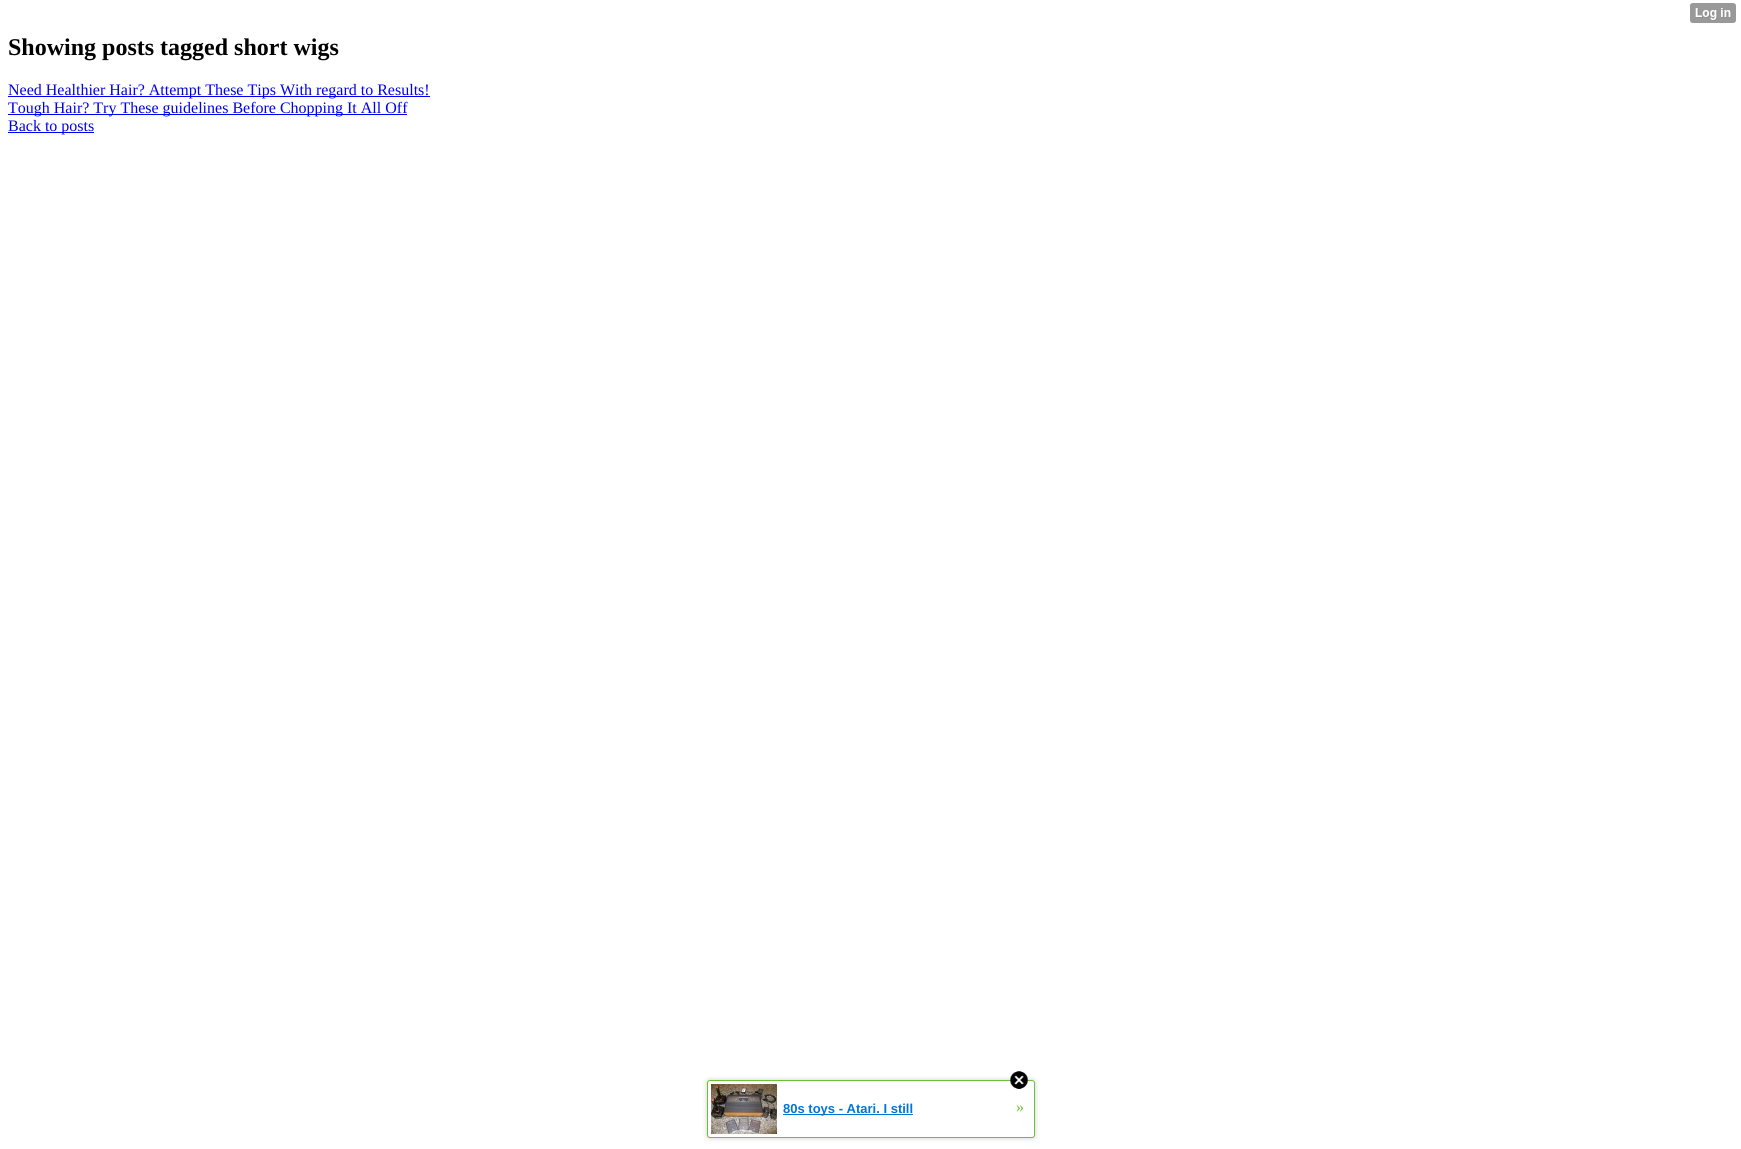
#include <cairo.h>
#include <math.h>
#include <stddef.h>

static cairo_t *c;
static void C(unsigned color){cairo_set_source_rgb(c, (color >> 16) / 255.0, (color >> 8 & 255) / 255.0, (color & 255) / 255.0);}
static void F(const char *family, double size, int italic, int bold){cairo_select_font_face(c, family, italic ? CAIRO_FONT_SLANT_ITALIC : CAIRO_FONT_SLANT_NORMAL,bold ? CAIRO_FONT_WEIGHT_BOLD : CAIRO_FONT_WEIGHT_NORMAL);cairo_set_font_size(c, size);}
static void T(double x, double y, const char *s){cairo_move_to(c, x, y);cairo_show_text(c, s);}
static void R(double x, double y, double w, double h){cairo_rectangle(c, x, y, w, h);cairo_fill(c);}
static void Q(double x, double y, double w, double h, double r){cairo_new_sub_path(c);cairo_arc(c, x + w - r, y + h - r, r, 0, M_PI / 2);cairo_arc(c, x + r, y + h - r, r, M_PI / 2, M_PI);cairo_arc(c, x + r, y + r, r, M_PI, 1.5 * M_PI);cairo_arc(c, x + w - r, y + r, r, 1.5 * M_PI, 2 * M_PI);cairo_close_path(c);}
static void S(double x, double y, double w, double h, double r, double blur, double alpha){cairo_push_group_with_content(c, CAIRO_CONTENT_ALPHA);cairo_set_operator(c, CAIRO_OPERATOR_SOURCE);for (int i = 15; i >= -15 && fmin(w, h) + blur * i / 3 > 0; i -= 2) {double e = blur * i / 6;cairo_set_source_rgba(c, 0, 0, 0, alpha * erfc((i - 1) / 8.5) / 2);Q(x - e, y - e, w + 2 * e, h + 2 * e, fmax(0, fmin(r + e + blur * .6, fmin(w, h) / 2 + e)));cairo_fill(c);}cairo_pattern_t *soft = cairo_pop_group(c);cairo_mask(c, soft);cairo_pattern_destroy(soft);}
static void I(const char *path, double x, double y, double w, double h){cairo_surface_t *image = cairo_image_surface_create_from_png(path);cairo_save(c);cairo_set_source_surface(c, image, x, y);cairo_rectangle(c, x, y, w, h);cairo_fill(c);cairo_restore(c);cairo_surface_destroy(image);}
int main(void) {
cairo_surface_t *surface = cairo_image_surface_create(CAIRO_FORMAT_RGB24, 1741, 1149);
c = cairo_create(surface);
cairo_font_options_t *options = cairo_font_options_create();
cairo_font_options_set_hint_metrics(options, CAIRO_HINT_METRICS_OFF);
cairo_font_options_set_hint_style(options, CAIRO_HINT_STYLE_NONE);
cairo_set_font_options(c, options);
cairo_set_miter_limit(c, 4);
C(0xffffff);
cairo_paint(c);
I("1.png",1690,3,46,20);
F("Liberation Serif",24,0,1);
C(0x000000);
T(8,55,"Showing posts tagged short wigs");
C(0x0000ee);
R(8,96,422,1);
F("Liberation Serif",16,0,0);
T(8,95,"Need Healthier Hair? Attempt These Tips With regard to Results!");
R(8,114,399,1);
T(8,113,"Tough Hair? Try These guidelines Before Chopping It All Off");
R(8,132,86,1);
T(8,131,"Back to posts");
C(0x000000);
S(707,1080,328,58,3,2.5,.2);
C(0xffffff);
Q(707.5,1080.5,327,57,2.5);
cairo_fill_preserve(c);
C(0x6bc135);
cairo_set_line_width(c,1);
cairo_stroke(c);
I("2.png",1010,1071,18,18);
I("3.png",711,1084,66,50);
C(0x0274d4);
R(783,1114,130,1);
F("Liberation Sans",13,0,1);
T(783,1113,"80s toys - Atari. I still");
F("Liberation Serif",16,0,0);
C(0x6bc135);
T(1016,1112,"»");
cairo_surface_write_to_png(surface, "o.png");
cairo_font_options_destroy(options);
cairo_destroy(c);
cairo_surface_destroy(surface);
return 0;
}
